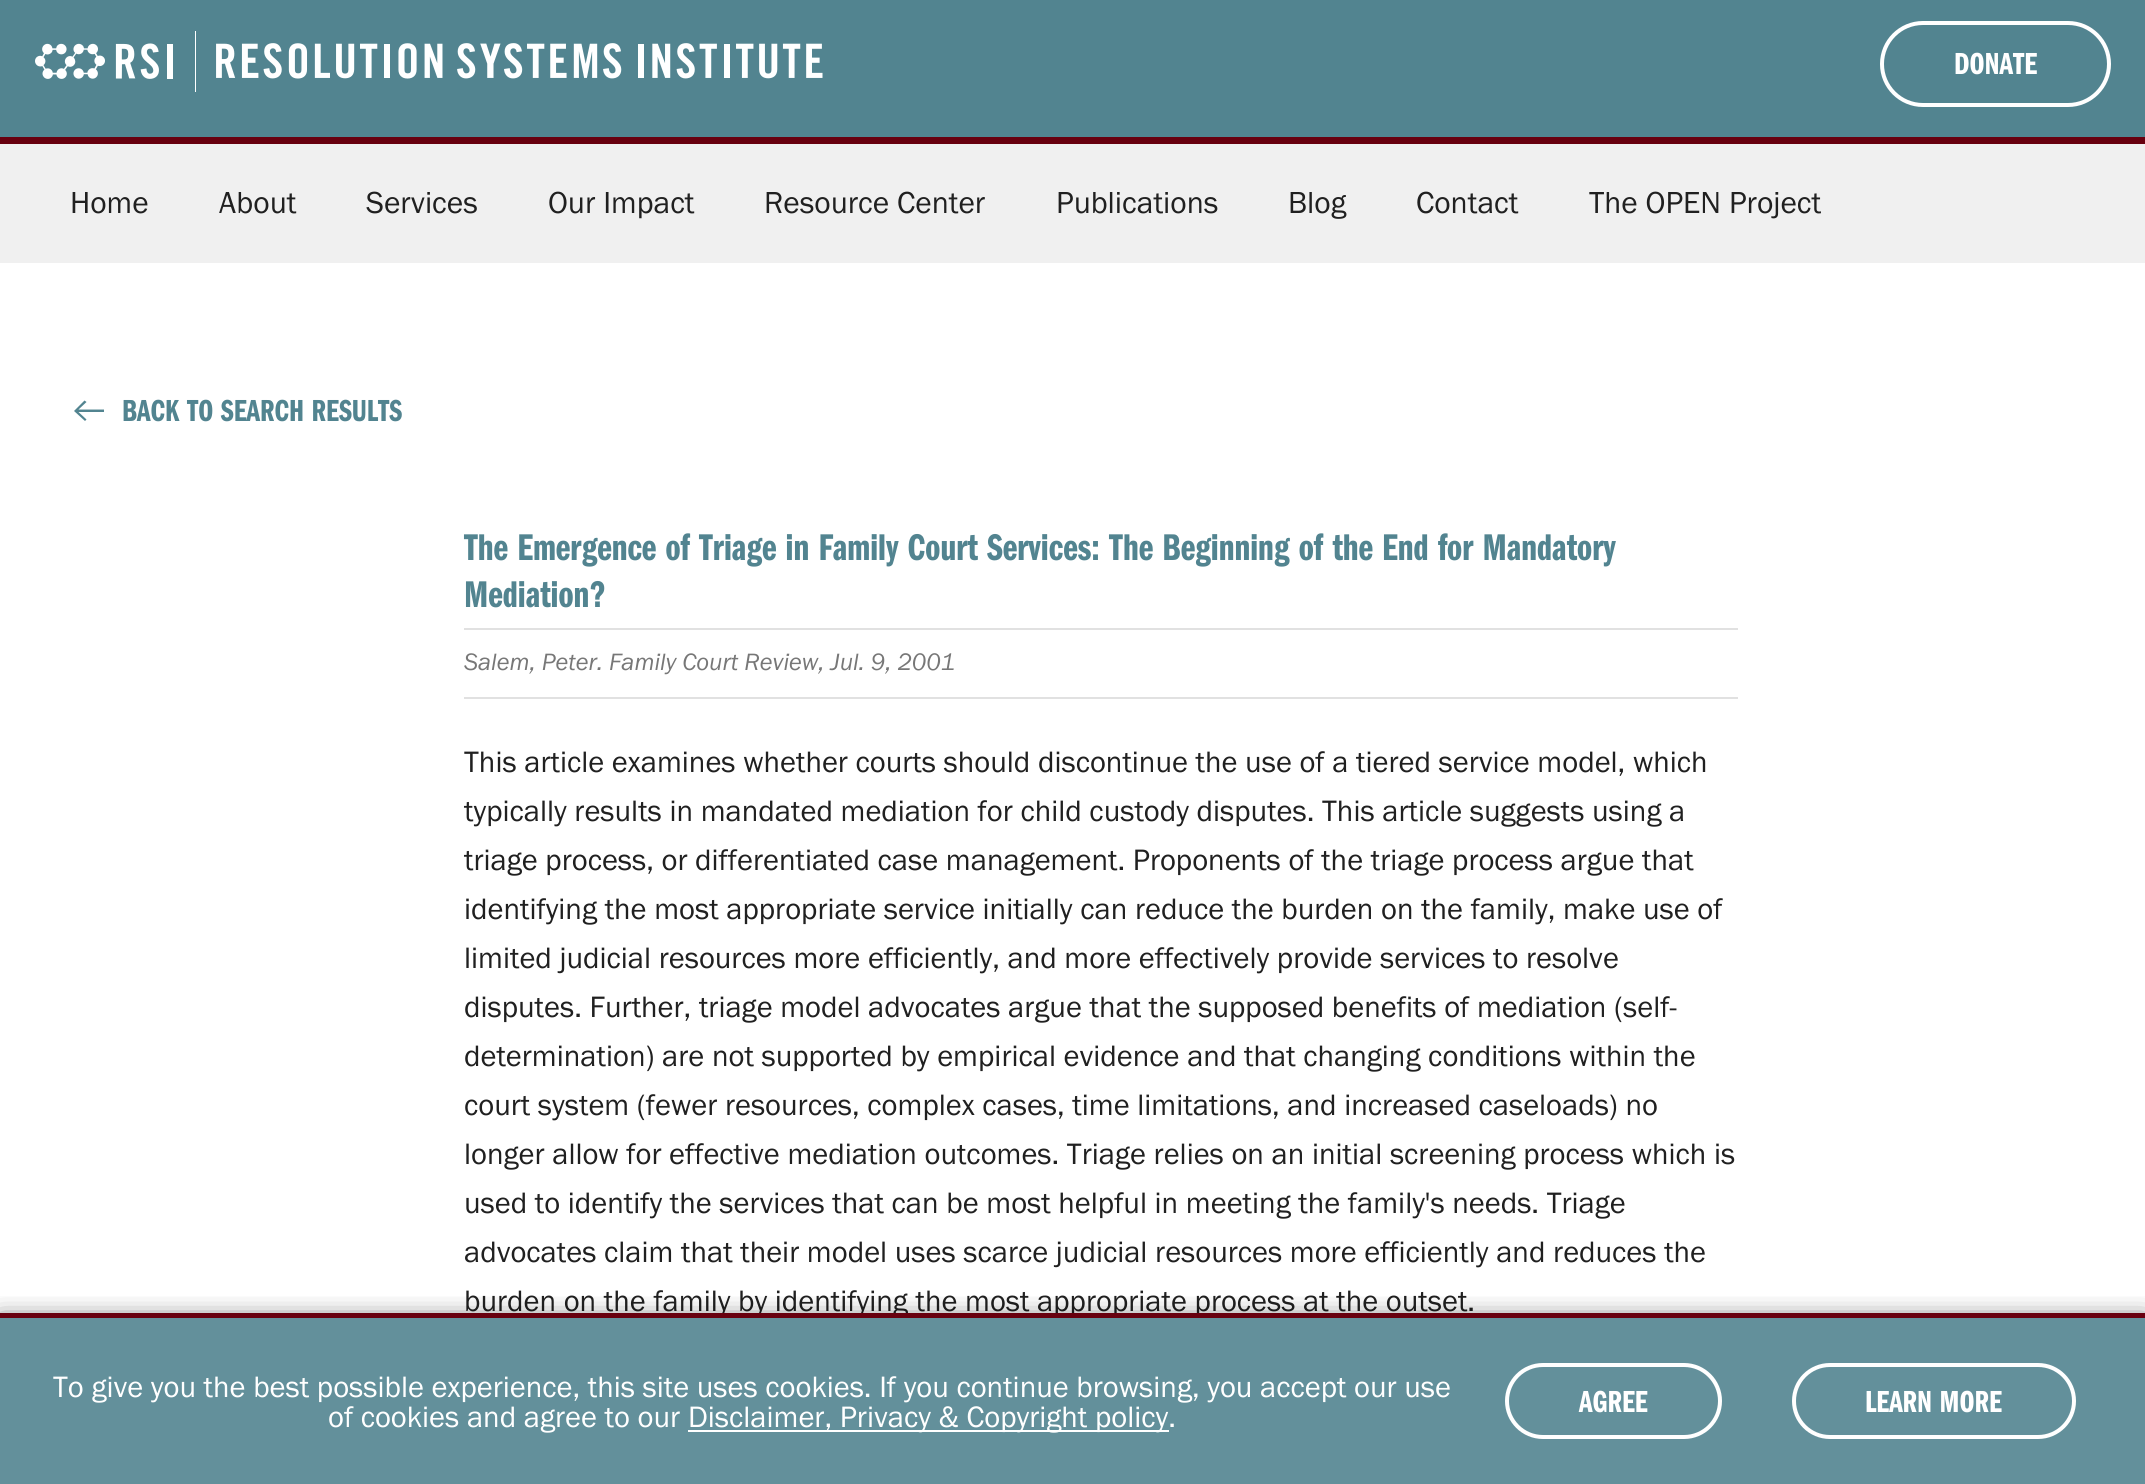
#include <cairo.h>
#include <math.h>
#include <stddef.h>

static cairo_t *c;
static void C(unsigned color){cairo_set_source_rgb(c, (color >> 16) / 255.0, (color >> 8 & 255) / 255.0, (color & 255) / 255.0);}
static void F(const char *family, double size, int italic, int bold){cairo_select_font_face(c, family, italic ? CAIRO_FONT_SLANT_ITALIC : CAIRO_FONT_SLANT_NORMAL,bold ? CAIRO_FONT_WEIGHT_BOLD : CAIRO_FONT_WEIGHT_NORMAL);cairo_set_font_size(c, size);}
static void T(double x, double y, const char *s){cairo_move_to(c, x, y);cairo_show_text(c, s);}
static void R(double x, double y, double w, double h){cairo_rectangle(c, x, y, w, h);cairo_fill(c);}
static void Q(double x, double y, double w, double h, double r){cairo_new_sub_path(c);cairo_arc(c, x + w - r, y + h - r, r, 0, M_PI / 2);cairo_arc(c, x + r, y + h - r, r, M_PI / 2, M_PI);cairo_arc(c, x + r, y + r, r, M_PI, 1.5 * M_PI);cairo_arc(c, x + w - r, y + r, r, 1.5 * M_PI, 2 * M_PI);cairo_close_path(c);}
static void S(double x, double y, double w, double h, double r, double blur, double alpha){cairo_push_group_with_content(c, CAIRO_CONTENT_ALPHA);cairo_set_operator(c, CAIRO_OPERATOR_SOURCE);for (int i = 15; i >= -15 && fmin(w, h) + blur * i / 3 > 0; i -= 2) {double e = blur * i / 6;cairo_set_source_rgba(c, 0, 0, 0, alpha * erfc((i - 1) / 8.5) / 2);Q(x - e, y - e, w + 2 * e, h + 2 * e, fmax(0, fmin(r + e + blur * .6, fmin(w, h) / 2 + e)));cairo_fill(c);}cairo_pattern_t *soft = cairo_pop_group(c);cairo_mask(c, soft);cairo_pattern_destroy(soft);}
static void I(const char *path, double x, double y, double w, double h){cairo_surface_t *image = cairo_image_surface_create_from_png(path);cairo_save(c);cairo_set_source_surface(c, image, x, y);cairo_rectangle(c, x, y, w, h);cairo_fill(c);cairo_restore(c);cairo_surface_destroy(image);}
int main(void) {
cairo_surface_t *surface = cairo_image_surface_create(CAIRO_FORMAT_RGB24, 2145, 1484);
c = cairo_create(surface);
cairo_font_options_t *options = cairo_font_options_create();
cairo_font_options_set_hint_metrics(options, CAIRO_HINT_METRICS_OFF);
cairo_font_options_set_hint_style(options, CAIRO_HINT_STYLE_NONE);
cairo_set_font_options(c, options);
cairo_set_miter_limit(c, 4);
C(0xffffff);
cairo_paint(c);
C(0x528490);
R(0,0,2145,137);
C(0x68000f);
R(0,137,2145,7);
I("1.png",35,31,788,61);
Q(1882,23,227,82,41);
C(0xffffff);
cairo_set_line_width(c,4);
cairo_stroke(c);
F("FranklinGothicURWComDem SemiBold",31.5,0,0);
T(1954,74,"DONATE");
C(0xf0f0f0);
R(0,144,2145,119);
F("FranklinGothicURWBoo",31.5,0,0);
C(0x202020);
T(70,213,"Home");
T(219,213,"About");
T(366,213,"Services");
T(548,213,"Our Impact");
T(764,213,"Resource Center");
T(1056,213,"Publications");
T(1288,213,"Blog");
T(1416,213,"Contact");
T(1589,213,"The OPEN Project");
C(0x528490);
cairo_new_path(c);
cairo_move_to(c,78.5,409.5);
cairo_line_to(c,86.5,402);
cairo_line_to(c,84.5,400.5);
cairo_line_to(c,74,411);
cairo_line_to(c,85,421);
cairo_line_to(c,86.5,419.5);
cairo_line_to(c,78.5,412);
cairo_line_to(c,104,412);
cairo_line_to(c,104,409.5);
cairo_close_path(c);
cairo_fill(c);
F("FranklinGothicURWComDem SemiBold",31.5,0,0);
T(122,421,"BACK TO SEARCH RESULTS");
F("FranklinGothicURWComDem SemiBold",38.5,0,0);
T(464,560,"The Emergence of Triage in Family Court Services: The Beginning of the End for Mandatory");
T(464,607,"Mediation?");
C(0xe1e1e1);
R(464,628,1274,2);
R(464,697,1274,2);
F("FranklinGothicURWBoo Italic",24.5,1,0);
C(0x777777);
T(464,670,"Salem, Peter. Family Court Review, Jul. 9, 2001");
F("FranklinGothicURWBoo",30.6,0,0);
C(0x202020);
T(464,772,"This article examines whether courts should discontinue the use of a tiered service model, which");
T(464,821,"typically results in mandated mediation for child custody disputes. This article suggests using a");
T(464,870,"triage process, or differentiated case management. Proponents of the triage process argue that");
T(464,919,"identifying the most appropriate service initially can reduce the burden on the family, make use of");
T(464,968,"limited judicial resources more efficiently, and more effectively provide services to resolve");
T(464,1017,"disputes. Further, triage model advocates argue that the supposed benefits of mediation (self-");
T(464,1066,"determination) are not supported by empirical evidence and that changing conditions within the");
T(464,1115,"court system (fewer resources, complex cases, time limitations, and increased caseloads) no");
T(464,1164,"longer allow for effective mediation outcomes. Triage relies on an initial screening process which is");
T(464,1213,"used to identify the services that can be most helpful in meeting the family's needs. Triage");
T(464,1262,"advocates claim that their model uses scarce judicial resources more efficiently and reduces the");
T(464,1311,"burden on the family by identifying the most appropriate process at the outset.");
cairo_save(c);
cairo_rectangle(c,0,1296,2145,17);
cairo_clip(c);
C(0x000000);
S(0,1321,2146,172,0,13,.75);
cairo_restore(c);
cairo_set_source_rgba(c,0.322,0.518,0.565,0.9);
R(0,1318,2145,166);
C(0x68000f);
R(0,1313,2145,5);
C(0xffffff);
T(53,1397,"To give you the best possible experience, this site uses cookies. If you continue browsing, you accept our use");
T(328,1427,"of cookies and agree to our");
R(688,1430,481,2);
T(688,1427,"Disclaimer, Privacy & Copyright policy.");
Q(1507,1365,213,72,36);
cairo_stroke(c);
F("FranklinGothicURWComDem SemiBold",31.5,0,0);
T(1579,1412,"AGREE");
Q(1794,1365,280,72,36);
cairo_stroke(c);
T(1865,1412,"LEARN MORE");
cairo_surface_write_to_png(surface, "o.png");
cairo_font_options_destroy(options);
cairo_destroy(c);
cairo_surface_destroy(surface);
return 0;
}
